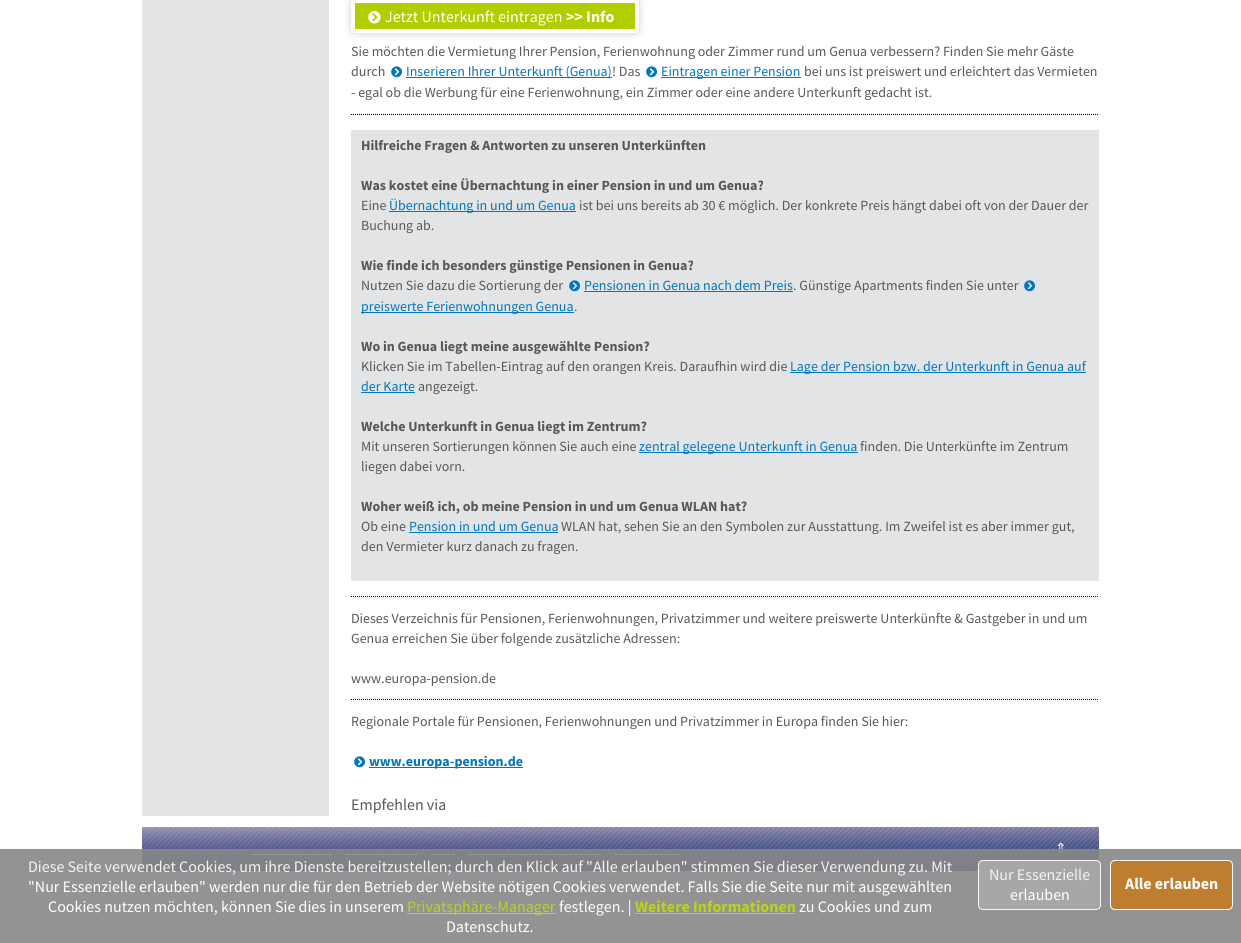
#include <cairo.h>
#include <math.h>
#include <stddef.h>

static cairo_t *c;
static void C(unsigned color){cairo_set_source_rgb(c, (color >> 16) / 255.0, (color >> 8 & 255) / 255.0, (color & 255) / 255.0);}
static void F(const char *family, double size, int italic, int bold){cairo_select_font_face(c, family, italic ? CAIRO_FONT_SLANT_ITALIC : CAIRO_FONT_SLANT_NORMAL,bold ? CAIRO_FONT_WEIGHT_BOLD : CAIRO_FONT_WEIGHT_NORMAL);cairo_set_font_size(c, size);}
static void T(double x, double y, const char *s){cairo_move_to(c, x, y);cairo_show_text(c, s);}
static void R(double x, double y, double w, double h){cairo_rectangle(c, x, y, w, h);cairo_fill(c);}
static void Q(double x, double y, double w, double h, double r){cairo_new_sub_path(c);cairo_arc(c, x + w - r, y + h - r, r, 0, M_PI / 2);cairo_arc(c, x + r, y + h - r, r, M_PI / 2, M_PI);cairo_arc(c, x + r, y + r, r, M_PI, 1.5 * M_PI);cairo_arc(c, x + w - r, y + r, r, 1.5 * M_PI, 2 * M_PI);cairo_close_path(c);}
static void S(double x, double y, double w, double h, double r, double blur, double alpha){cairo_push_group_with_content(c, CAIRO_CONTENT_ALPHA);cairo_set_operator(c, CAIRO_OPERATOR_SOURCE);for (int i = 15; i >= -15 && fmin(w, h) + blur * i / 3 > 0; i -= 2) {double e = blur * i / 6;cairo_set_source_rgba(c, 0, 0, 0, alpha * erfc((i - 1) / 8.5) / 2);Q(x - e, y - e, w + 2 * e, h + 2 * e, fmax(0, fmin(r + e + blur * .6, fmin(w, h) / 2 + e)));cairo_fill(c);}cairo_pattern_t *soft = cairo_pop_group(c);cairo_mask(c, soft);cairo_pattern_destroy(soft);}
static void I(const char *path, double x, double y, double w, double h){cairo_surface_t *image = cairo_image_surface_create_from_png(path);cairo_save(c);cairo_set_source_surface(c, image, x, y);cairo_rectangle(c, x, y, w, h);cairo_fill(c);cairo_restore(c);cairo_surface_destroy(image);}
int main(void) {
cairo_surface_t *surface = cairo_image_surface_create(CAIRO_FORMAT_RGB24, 1241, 943);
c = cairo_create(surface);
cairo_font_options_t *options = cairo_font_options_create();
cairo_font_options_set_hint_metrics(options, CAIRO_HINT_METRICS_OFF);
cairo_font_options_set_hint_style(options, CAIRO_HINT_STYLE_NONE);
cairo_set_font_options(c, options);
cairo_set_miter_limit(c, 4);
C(0xffffff);
cairo_paint(c);
C(0xe3e4e5);
R(142,0,187,816);
C(0xcdcecf);
S(351,-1,288,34,4,4,1);
C(0xb4cd00);
Q(353,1,284,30,2);
cairo_fill_preserve(c);
C(0xffffff);
cairo_set_line_width(c,4);
cairo_stroke(c);
I("1.png",368,11,13,13);
F("Source Sans Pro",16,0,0);
T(385,22,"Jetzt Unterkunft eintragen");
F("Source Sans Pro",16,0,1);
T(566,22,">> Info");
F("Source Sans Pro",14,0,0);
C(0x58585a);
T(351,56,"Sie möchten die Vermietung Ihrer Pension, Ferienwohnung oder Zimmer rund um Genua verbessern? Finden Sie mehr Gäste");
T(351,76,"durch");
I("2.png",391,66,11,12);
C(0x0076bd);
R(406,77,206,1);
T(406,76,"Inserieren Ihrer Unterkunft (Genua)");
C(0x58585a);
T(612,76,"! Das");
I("2.png",646,66,11,12);
C(0x0076bd);
R(661,77,140,1);
T(661,76,"Eintragen einer Pension");
C(0x58585a);
T(804,76,"bei uns ist preiswert und erleichtert das Vermieten");
T(351,97,"- egal ob die Werbung für eine Ferienwohnung, ein Zimmer oder eine andere Unterkunft gedacht ist.");
cairo_new_path(c);
cairo_move_to(c,351,114.5);
cairo_line_to(c,1099,114.5);
C(0x000000);
cairo_set_line_width(c,1);
cairo_set_dash(c,(double[]){1,1},2,0);
cairo_stroke(c);
C(0xe3e4e5);
R(351,130,748,451);
F("Source Sans Pro",14,0,1);
C(0x58585a);
T(361,150,"Hilfreiche Fragen & Antworten zu unseren Unterkünften");
T(361,190,"Was kostet eine Übernachtung in einer Pension in und um Genua?");
F("Source Sans Pro",14,0,0);
T(361,210,"Eine");
C(0x0076bd);
R(389,211,187,1);
T(389,210,"Übernachtung in und um Genua");
C(0x58585a);
T(579,210,"ist bei uns bereits ab 30 € möglich. Der konkrete Preis hängt dabei oft von der Dauer der");
T(361,230,"Buchung ab.");
F("Source Sans Pro",14,0,1);
T(361,270,"Wie finde ich besonders günstige Pensionen in Genua?");
F("Source Sans Pro",14,0,0);
T(361,290,"Nutzen Sie dazu die Sortierung der");
I("3.png",569,280,11,12);
C(0x0076bd);
T(584,290,"Pensionen in Genua nach dem Preis");
R(584,291,209,1);
C(0x58585a);
T(793,290,". Günstige Apartments finden Sie unter");
I("3.png",1024,280,11,12);
C(0x0076bd);
R(361,312,213,1);
T(361,311,"preiswerte Ferienwohnungen Genua");
C(0x58585a);
T(574,311,".");
F("Source Sans Pro",14,0,1);
T(361,351,"Wo in Genua liegt meine ausgewählte Pension?");
F("Source Sans Pro",14,0,0);
T(361,371,"Klicken Sie im Tabellen-Eintrag auf den orangen Kreis. Daraufhin wird die");
C(0x0076bd);
R(790,372,296,1);
T(790,371,"Lage der Pension bzw. der Unterkunft in Genua auf");
T(361,391,"der Karte");
R(361,392,54,1);
C(0x58585a);
T(418,391,"angezeigt.");
F("Source Sans Pro",14,0,1);
T(361,431,"Welche Unterkunft in Genua liegt im Zentrum?");
F("Source Sans Pro",14,0,0);
T(361,451,"Mit unseren Sortierungen können Sie auch eine");
C(0x0076bd);
R(639,452,219,1);
T(639,451,"zentral gelegene Unterkunft in Genua");
C(0x58585a);
T(860,451,"finden. Die Unterkünfte im Zentrum");
T(361,471,"liegen dabei vorn.");
F("Source Sans Pro",14,0,1);
T(361,511,"Woher weiß ich, ob meine Pension in und um Genua WLAN hat?");
F("Source Sans Pro",14,0,0);
T(361,531,"Ob eine");
C(0x0076bd);
T(409,531,"Pension in und um Genua");
R(409,532,149,1);
C(0x58585a);
T(561,531,"WLAN hat, sehen Sie an den Symbolen zur Ausstattung. Im Zweifel ist es aber immer gut,");
T(361,551,"den Vermieter kurz danach zu fragen.");
cairo_new_path(c);
cairo_move_to(c,351,596.5);
cairo_line_to(c,1099,596.5);
C(0x000000);
cairo_stroke(c);
C(0x58585a);
T(351,623,"Dieses Verzeichnis für Pensionen, Ferienwohnungen, Privatzimmer und weitere preiswerte Unterkünfte & Gastgeber in und um");
T(351,643,"Genua erreichen Sie über folgende zusätzliche Adressen:");
T(351,683,"www.europa-pension.de");
cairo_new_path(c);
cairo_move_to(c,351,699.5);
cairo_line_to(c,1099,699.5);
C(0x000000);
cairo_stroke(c);
C(0x58585a);
T(351,726,"Regionale Portale für Pensionen, Ferienwohnungen und Privatzimmer in Europa finden Sie hier:");
I("2.png",354,756,11,12);
C(0x0076bd);
R(369,767,154,1);
F("Source Sans Pro",14,0,1);
T(369,766,"www.europa-pension.de");
F("Source Sans Pro",16,0,0);
C(0x58585a);
T(351,810,"Empfehlen via");
I("4.png",142,827,957,44);
F("DejaVu Sans",14,0,0);
C(0xffffff);
T(1055,853,"⇑");
R(252,854,80,1);
R(345,854,73,1);
R(431,854,24,1);
R(468,854,133,1);
R(614,854,66,1);
cairo_set_source_rgba(c,0.533,0.533,0.533,0.9);
R(0,849,1241,94);
F("Source Sans Pro",16,0,0);
C(0xf3f3f3);
T(28,872,"Diese Seite verwendet Cookies, um ihre Dienste bereitzustellen; durch den Klick auf \"Alle erlauben\" stimmen Sie dieser Verwendung zu. Mit");
C(0xffffff);
T(28,892,"\"Nur Essenzielle erlauben\" werden nur die für den Betrieb der Website nötigen Cookies verwendet. Falls Sie die Seite nur mit ausgewählten");
T(48,912,"Cookies nutzen möchten, können Sie dies in unserem");
C(0xbcd21a);
R(407,913,149,1);
T(407,912,"Privatsphäre-Manager");
C(0xffffff);
T(559,912,"festlegen. |");
F("Source Sans Pro",16,0,1);
C(0xbcd21a);
T(635,912,"Weitere Informationen");
R(635,913,160,1);
F("Source Sans Pro",16,0,0);
C(0xffffff);
T(799,912,"zu Cookies und zum");
T(446,932,"Datenschutz.");
cairo_set_source_rgba(c,0.667,0.667,0.667,0.9);
Q(978,860,123,50,5);
cairo_fill(c);
Q(978.5,860.5,122,49,4.5);
cairo_set_source_rgba(c,1,1,1,0.9);
cairo_set_dash(c,NULL,0,0);
cairo_stroke(c);
C(0xf3f3f3);
T(989,880,"Nur Essenzielle");
C(0xffffff);
T(1010,900,"erlauben");
C(0xbf7d30);
Q(1110.5,860.5,122,49,4.5);
cairo_fill_preserve(c);
C(0xffffff);
cairo_stroke(c);
F("Source Sans Pro",16,0,1);
T(1125,889,"Alle erlauben");
cairo_surface_write_to_png(surface, "o.png");
cairo_font_options_destroy(options);
cairo_destroy(c);
cairo_surface_destroy(surface);
return 0;
}
